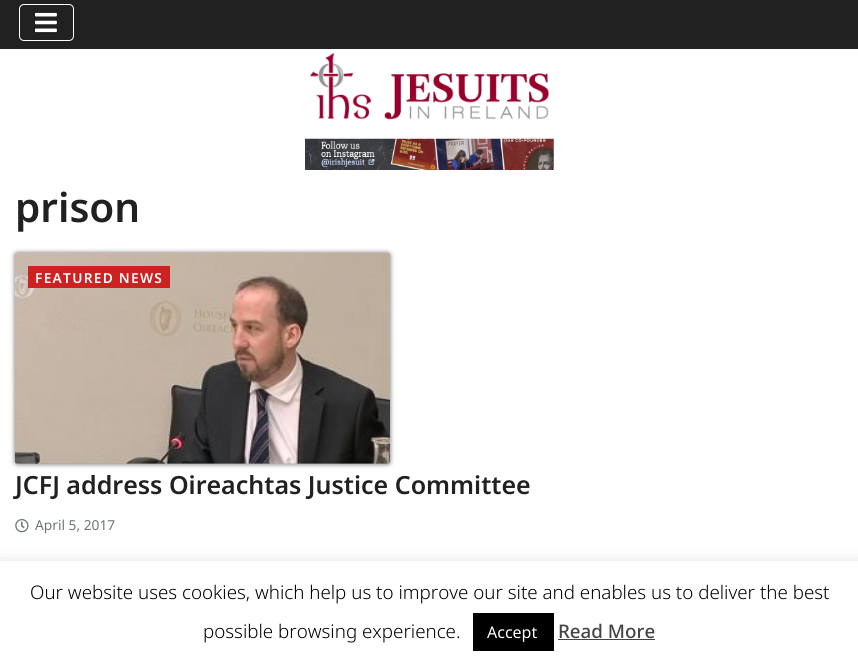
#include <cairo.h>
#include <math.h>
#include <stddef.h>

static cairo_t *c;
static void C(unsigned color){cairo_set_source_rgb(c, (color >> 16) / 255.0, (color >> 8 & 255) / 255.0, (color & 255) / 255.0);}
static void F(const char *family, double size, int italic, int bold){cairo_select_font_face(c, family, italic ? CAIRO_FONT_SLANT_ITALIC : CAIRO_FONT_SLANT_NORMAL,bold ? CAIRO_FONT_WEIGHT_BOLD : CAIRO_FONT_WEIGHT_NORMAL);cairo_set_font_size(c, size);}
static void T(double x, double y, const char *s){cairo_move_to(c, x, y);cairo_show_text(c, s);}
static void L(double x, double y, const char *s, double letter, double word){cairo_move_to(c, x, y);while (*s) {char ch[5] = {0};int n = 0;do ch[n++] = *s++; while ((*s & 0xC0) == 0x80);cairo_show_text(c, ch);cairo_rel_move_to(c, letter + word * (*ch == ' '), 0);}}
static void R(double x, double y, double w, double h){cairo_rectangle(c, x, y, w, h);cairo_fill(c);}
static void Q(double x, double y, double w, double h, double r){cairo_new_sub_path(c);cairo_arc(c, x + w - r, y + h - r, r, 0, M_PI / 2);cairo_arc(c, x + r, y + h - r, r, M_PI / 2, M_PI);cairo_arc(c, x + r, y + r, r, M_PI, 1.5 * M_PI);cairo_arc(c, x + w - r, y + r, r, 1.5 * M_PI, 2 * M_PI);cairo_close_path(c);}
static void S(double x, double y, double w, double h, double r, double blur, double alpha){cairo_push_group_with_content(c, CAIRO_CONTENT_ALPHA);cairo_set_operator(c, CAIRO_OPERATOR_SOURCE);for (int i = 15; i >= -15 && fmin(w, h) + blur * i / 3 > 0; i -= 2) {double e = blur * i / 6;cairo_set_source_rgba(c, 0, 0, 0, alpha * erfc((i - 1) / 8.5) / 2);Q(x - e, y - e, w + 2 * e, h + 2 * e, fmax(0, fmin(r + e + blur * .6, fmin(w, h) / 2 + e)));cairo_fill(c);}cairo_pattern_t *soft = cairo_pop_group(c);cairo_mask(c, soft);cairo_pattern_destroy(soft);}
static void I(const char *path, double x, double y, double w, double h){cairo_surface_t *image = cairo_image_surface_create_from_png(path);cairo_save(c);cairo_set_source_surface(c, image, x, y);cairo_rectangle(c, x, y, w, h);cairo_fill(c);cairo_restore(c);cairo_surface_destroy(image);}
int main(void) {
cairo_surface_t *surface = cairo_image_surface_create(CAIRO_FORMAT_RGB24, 858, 666);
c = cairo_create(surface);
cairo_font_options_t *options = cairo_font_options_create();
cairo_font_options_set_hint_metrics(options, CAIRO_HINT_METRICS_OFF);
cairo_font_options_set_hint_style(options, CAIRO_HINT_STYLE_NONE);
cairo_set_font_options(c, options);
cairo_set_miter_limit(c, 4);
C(0xffffff);
cairo_paint(c);
C(0x212121);
R(0,0,858,49);
Q(19.5,4.5,54,36,4.5);
C(0xffffff);
cairo_set_line_width(c,1);
cairo_stroke(c);
I("1.png",35,12,22,21);
I("2.png",310,53,240,67);
I("3.png",305,138,249,32);
F("Noto Sans SemiBold",40.5,0,0);
C(0x212121);
T(15,222,"prison");
C(0x000000);
S(15,253,375,211,2.5,2.5,.6);
I("4.png",15,252,375,212);
C(0xcd2122);
R(28,266,142,22);
F("Noto Sans SemiBold",13.75,0,0);
C(0xffffff);
L(35,283,"FEATURED NEWS",1.25,0);
F("Noto Sans SemiBold",25,0,0);
C(0x212121);
T(15,494,"JCFJ address Oireachtas Justice Committee");
I("5.png",15,519,14,14);
F("Noto Sans",13.75,0,0);
C(0x6c757d);
T(35,530,"April 5, 2017");
C(0xacabab);
S(0,560,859,105,0,6,.3);
C(0xffffff);
R(0,561,858,105);
F("Noto Sans Light",18.75,0,0);
C(0x000000);
T(30,599,"Our website uses cookies, which help us to improve our site and enables us to deliver the best");
T(203,638,"possible browsing experience.");
R(473,613,81,38);
F("Noto Sans",16,0,0);
C(0xffffff);
T(487,638,"Accept");
F("Noto Sans Medium",18.75,0,0);
C(0x444444);
T(558,638,"Read More");
R(558,639,97,1);
cairo_surface_write_to_png(surface, "o.png");
cairo_font_options_destroy(options);
cairo_destroy(c);
cairo_surface_destroy(surface);
return 0;
}
